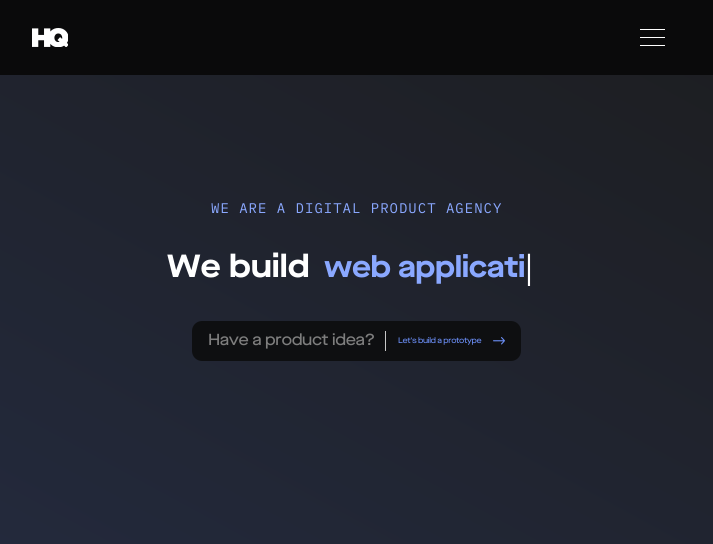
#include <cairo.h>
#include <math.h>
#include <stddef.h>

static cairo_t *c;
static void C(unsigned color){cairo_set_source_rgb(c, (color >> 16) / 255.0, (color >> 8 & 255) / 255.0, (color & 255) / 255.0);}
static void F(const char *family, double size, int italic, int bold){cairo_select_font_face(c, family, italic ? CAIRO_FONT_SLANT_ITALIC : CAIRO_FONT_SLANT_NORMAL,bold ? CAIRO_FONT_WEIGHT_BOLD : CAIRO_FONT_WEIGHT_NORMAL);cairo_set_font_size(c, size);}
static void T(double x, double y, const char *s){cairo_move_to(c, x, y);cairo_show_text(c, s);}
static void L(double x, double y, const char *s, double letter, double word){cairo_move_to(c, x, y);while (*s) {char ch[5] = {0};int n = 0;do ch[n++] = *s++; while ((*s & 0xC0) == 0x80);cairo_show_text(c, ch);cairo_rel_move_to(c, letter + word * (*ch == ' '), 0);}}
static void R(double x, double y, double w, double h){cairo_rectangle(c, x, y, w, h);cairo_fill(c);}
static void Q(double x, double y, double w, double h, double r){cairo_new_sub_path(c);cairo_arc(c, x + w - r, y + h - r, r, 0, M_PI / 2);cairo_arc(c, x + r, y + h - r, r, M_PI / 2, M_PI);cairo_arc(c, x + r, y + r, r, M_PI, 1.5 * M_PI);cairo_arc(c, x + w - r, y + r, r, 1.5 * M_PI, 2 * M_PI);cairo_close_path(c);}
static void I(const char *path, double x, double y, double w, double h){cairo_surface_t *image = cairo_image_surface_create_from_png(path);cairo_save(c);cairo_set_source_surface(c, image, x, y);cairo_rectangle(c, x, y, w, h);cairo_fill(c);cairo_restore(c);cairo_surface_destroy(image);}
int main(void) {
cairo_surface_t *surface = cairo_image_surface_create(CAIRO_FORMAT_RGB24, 713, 544);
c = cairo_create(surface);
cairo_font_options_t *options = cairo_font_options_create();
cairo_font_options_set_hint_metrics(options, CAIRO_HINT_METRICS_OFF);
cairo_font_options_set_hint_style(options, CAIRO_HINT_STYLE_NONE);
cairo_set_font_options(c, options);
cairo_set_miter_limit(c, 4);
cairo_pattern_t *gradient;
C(0xffffff);
cairo_paint(c);
C(0x0a0a0b);
R(0,0,713,75);
I("1.png",32,28,36,19);
C(0xffffff);
R(640,29,25,1);
R(640,37,25,1);
R(640,45,25,1);
gradient = cairo_pattern_create_linear(357,-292,-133,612);
cairo_pattern_add_color_stop_rgba(gradient,0,0.11,0.11,0.114,1);
cairo_pattern_add_color_stop_rgba(gradient,1,0.141,0.169,0.251,1);
cairo_set_source(c,gradient);
cairo_pattern_destroy(gradient);
R(0,75,713,469);
F("IBM Plex Mono",14,0,0);
C(0x8aa8ff);
L(211,213,"WE ARE A DIGITAL PRODUCT AGENCY",1,0);
F("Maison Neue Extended",32,0,1);
C(0xffffff);
T(167,277,"We build");
F("Maison Neue Extended",30,0,1);
C(0x8aa8ff);
L(324,277,"web applicati",-.4,0);
F("Maison Neue Extended Medium",30,0,0);
C(0xffffff);
L(525,277,"|",-.4,0);
C(0x0e0f11);
Q(192,321,329,40,10);
cairo_fill(c);
F("Maison Neue Extended Medium",16,0,0);
C(0x7e7e7e);
L(208,345,"Have a product idea?",-.4,0);
C(0xc7c7c7);
R(385,331,1,20);
F("Maison Neue Extended Medium",8,0,0);
C(0x698cf3);
L(398,343,"Let's build a prototype",-.4,0);
I("2.png",493,337,12,8);
cairo_surface_write_to_png(surface, "o.png");
cairo_font_options_destroy(options);
cairo_destroy(c);
cairo_surface_destroy(surface);
return 0;
}
